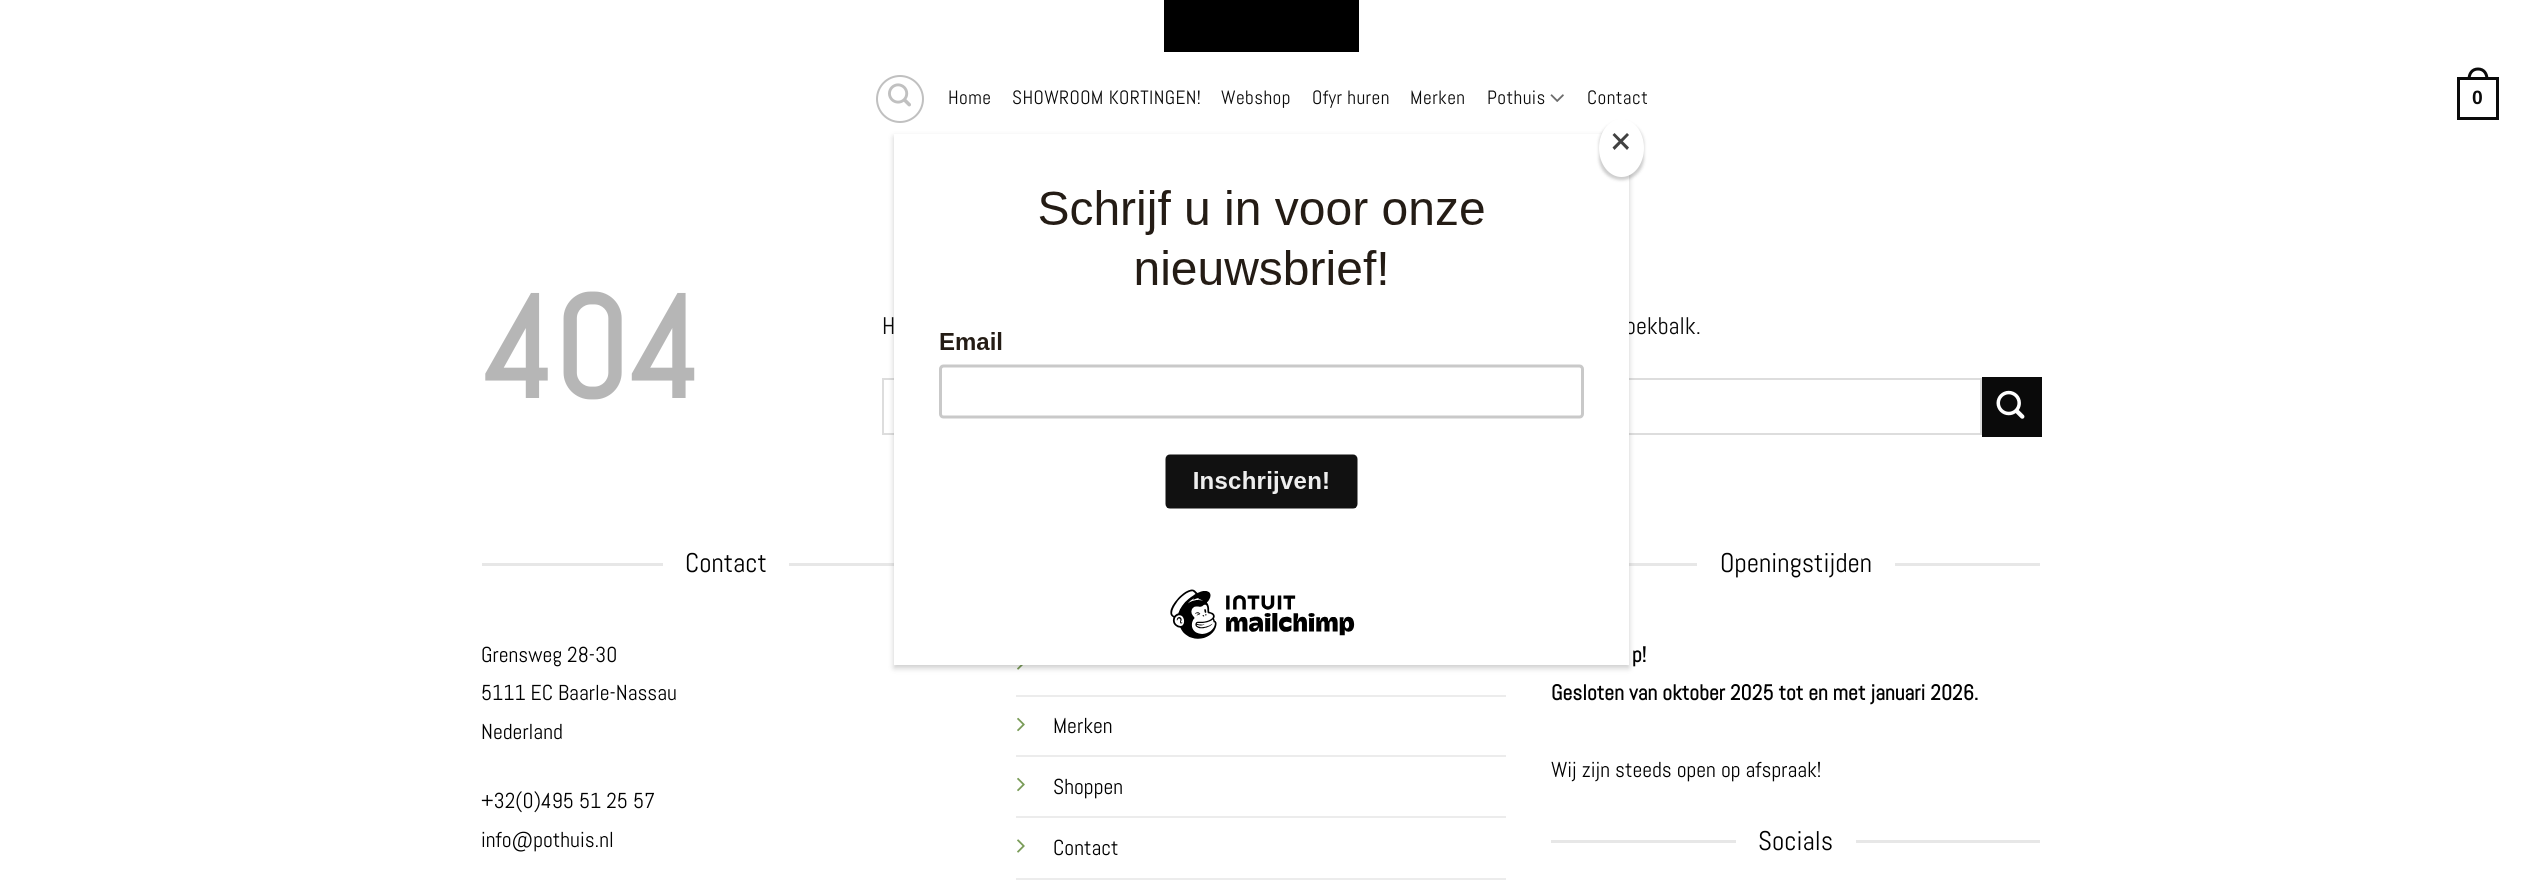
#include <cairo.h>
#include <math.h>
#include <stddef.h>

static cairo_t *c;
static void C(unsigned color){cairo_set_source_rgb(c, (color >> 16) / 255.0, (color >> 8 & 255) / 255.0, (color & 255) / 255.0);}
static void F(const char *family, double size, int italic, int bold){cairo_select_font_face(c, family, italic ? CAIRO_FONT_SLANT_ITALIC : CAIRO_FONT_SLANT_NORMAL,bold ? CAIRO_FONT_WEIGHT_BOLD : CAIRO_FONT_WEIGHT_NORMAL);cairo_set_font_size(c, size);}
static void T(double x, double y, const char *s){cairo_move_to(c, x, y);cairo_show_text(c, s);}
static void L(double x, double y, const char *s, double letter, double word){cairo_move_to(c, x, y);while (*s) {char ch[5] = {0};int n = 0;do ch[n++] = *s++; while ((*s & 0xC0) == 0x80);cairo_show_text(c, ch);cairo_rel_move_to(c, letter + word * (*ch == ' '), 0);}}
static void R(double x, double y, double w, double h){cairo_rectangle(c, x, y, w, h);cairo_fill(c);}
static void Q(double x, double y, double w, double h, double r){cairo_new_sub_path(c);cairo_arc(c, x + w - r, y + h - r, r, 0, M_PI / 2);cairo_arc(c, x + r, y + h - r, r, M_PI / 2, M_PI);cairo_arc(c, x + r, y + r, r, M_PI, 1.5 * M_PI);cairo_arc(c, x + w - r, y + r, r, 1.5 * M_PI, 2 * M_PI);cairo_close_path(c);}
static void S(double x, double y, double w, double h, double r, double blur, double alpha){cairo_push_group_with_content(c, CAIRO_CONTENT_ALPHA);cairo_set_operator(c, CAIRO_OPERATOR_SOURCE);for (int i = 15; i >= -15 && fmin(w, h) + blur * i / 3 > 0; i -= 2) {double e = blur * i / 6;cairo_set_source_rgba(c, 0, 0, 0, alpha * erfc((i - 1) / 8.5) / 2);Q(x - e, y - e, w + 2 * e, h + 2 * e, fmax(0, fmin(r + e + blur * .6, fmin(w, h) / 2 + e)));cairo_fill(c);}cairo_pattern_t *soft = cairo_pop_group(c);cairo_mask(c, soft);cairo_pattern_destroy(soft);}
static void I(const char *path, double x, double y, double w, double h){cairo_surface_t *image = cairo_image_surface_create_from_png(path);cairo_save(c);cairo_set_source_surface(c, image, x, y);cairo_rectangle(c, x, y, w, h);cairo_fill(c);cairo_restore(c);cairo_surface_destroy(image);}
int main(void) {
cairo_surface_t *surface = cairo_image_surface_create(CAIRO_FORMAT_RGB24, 2521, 892);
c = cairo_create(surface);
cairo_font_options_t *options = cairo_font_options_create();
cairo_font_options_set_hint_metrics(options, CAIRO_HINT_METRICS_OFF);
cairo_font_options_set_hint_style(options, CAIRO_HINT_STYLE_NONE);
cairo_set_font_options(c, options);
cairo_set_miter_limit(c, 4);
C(0xffffff);
cairo_paint(c);
C(0x000000);
R(1164,0,195,52);
cairo_arc(c,900,99,23,0,2 * M_PI);
C(0xc0c0c0);
cairo_stroke(c);
I("1.png",888,83,23,24);
F("Abel",19.25,0,0);
C(0x0a0a0a);
L(948,104,"Home",.4,0);
L(1012,104,"SHOWROOM KORTINGEN!",.4,0);
L(1221,104,"Webshop",.4,0);
L(1312,104,"Ofyr huren",.4,0);
L(1410,104,"Merken",.4,0);
L(1487,104,"Pothuis",.4,0);
I("2.png",1550,94,14,8);
L(1587,104,"Contact",.4,0);
cairo_rectangle(c,2458.5,78.5,39,40);
cairo_set_line_width(c,3);
cairo_stroke(c);
cairo_set_fill_rule(c,CAIRO_FILL_RULE_EVEN_ODD);
cairo_new_path(c);
cairo_move_to(c,2478,67.5);
cairo_curve_to(c,2485,67.5,2488.5,73,2488.5,79.5);
cairo_line_to(c,2467.5,79.5);
cairo_curve_to(c,2467.5,73,2471,67.5,2478,67.5);
cairo_close_path(c);
cairo_move_to(c,2478,70.5);
cairo_curve_to(c,2483.5,70.5,2485.5,75,2485.5,79.5);
cairo_line_to(c,2470.5,79.5);
cairo_curve_to(c,2470.5,75,2472.5,70.5,2478,70.5);
cairo_close_path(c);
cairo_fill(c);
F("Liberation Sans",19.25,0,1);
L(2472,104,"0",.4,0);
F("Abel",144,0,1);
C(0xb6b6b6);
T(481,398,"404");
F("Abel",24,0,0);
C(0x0a0a0a);
T(882,334,"H");
T(1625,334,"oekbalk.");
cairo_rectangle(c,883,379,1098,55);
C(0xdddddd);
cairo_set_line_width(c,2);
cairo_stroke(c);
C(0x0a0a0a);
R(1982,377,60,60);
I("3.png",1996,390,29,29);
C(0xe7e7e7);
R(482,563,181,3);
F("Abel",27,0,0);
C(0x000000);
T(685,572,"Contact");
C(0xe7e7e7);
R(789,563,105,3);
F("Abel",21.6,0,0);
C(0x000000);
T(481,662,"Grensweg 28-30");
T(481,700,"5111 EC Baarle-Nassau");
T(481,739,"Nederland");
T(481,808,"+32(0)495 51 25 57");
T(481,847,"info@pothuis.nl");
C(0xececec);
R(1016,695,490,2);
I("4.png",1017,665,6,5);
R(1016,755,490,2);
I("5.png",1017,717,8,15);
C(0x000000);
T(1053,733,"Merken");
C(0xececec);
R(1016,816,490,2);
I("5.png",1017,777,8,15);
C(0x000000);
T(1053,794,"Shoppen");
C(0xececec);
R(1016,878,490,2);
I("6.png",1017,839,8,14);
C(0x000000);
T(1053,855,"Contact");
C(0xe7e7e7);
R(1629,563,68,3);
F("Abel",27,0,0);
C(0x000000);
T(1720,572,"Openingstijden");
C(0xe7e7e7);
R(1895,563,145,3);
F("Abel",21.6,0,1);
C(0x000000);
T(1632,662,"p!");
T(1551,700,"Gesloten van oktober 2025 tot en met januari 2026.");
F("Abel",21.6,0,0);
T(1551,777,"Wij zijn steeds open op afspraak!");
C(0xe7e7e7);
R(1551,840,185,3);
F("Abel",27,0,0);
C(0x000000);
T(1758,850,"Socials");
C(0xe7e7e7);
R(1856,840,184,3);
C(0x000000);
S(1599,122,45,58,22.5,1.5,.2);
cairo_save(c);
cairo_new_path(c);
cairo_move_to(c,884,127);
cairo_line_to(c,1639,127);
cairo_line_to(c,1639,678);
cairo_line_to(c,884,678);
cairo_close_path(c);
cairo_move_to(c,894,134);
cairo_line_to(c,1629,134);
cairo_line_to(c,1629,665);
cairo_line_to(c,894,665);
cairo_close_path(c);
cairo_clip(c);
S(894,137,735,531,0,3,.2);
cairo_restore(c);
C(0xffffff);
cairo_new_path(c);
cairo_move_to(c,1621.5,119);
cairo_curve_to(c,1634,119,1644,132,1644,148);
cairo_curve_to(c,1644,164,1634,177,1621.5,177);
cairo_curve_to(c,1609,177,1599,164,1599,148);
cairo_curve_to(c,1599,132,1609,119,1621.5,119);
cairo_close_path(c);
cairo_fill(c);
C(0x414141);
cairo_set_fill_rule(c,CAIRO_FILL_RULE_WINDING);
cairo_new_path(c);
cairo_move_to(c,1627,133);
cairo_line_to(c,1629,135);
cairo_line_to(c,1614.5,150);
cairo_line_to(c,1612.5,147.5);
cairo_close_path(c);
cairo_fill(c);
cairo_new_path(c);
cairo_move_to(c,1612.5,135);
cairo_line_to(c,1614.5,133);
cairo_line_to(c,1629,147.5);
cairo_line_to(c,1627,150);
cairo_close_path(c);
cairo_fill(c);
I("7.png",894,190,735,475);
cairo_surface_write_to_png(surface, "o.png");
cairo_font_options_destroy(options);
cairo_destroy(c);
cairo_surface_destroy(surface);
return 0;
}
